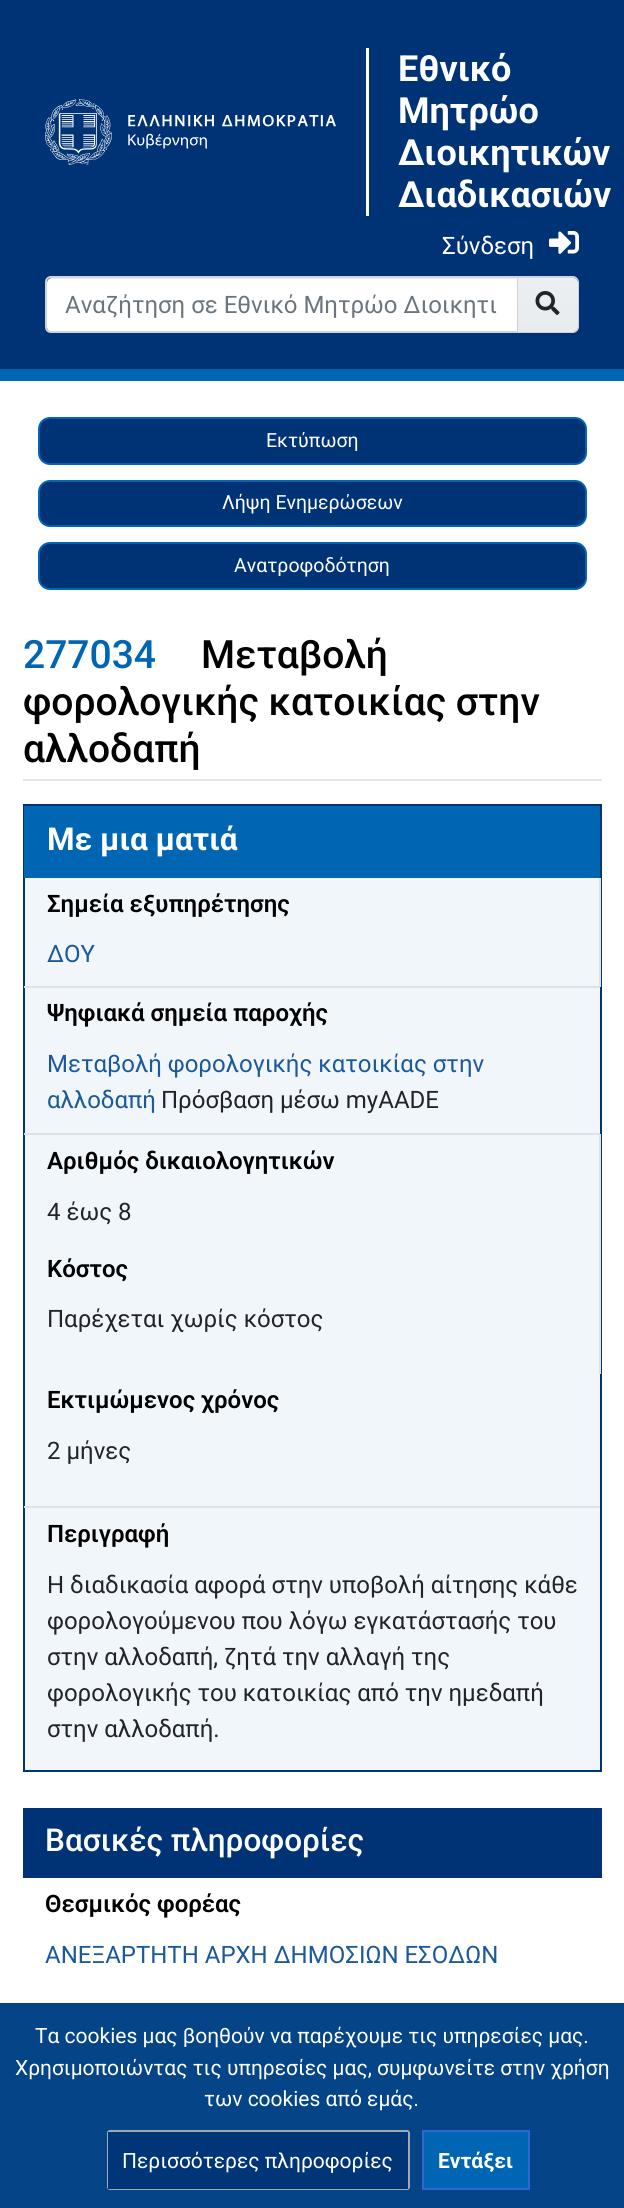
#include <cairo.h>
#include <math.h>
#include <stddef.h>

static cairo_t *c;
static void C(unsigned color){cairo_set_source_rgb(c, (color >> 16) / 255.0, (color >> 8 & 255) / 255.0, (color & 255) / 255.0);}
static void F(const char *family, double size, int italic, int bold){cairo_select_font_face(c, family, italic ? CAIRO_FONT_SLANT_ITALIC : CAIRO_FONT_SLANT_NORMAL,bold ? CAIRO_FONT_WEIGHT_BOLD : CAIRO_FONT_WEIGHT_NORMAL);cairo_set_font_size(c, size);}
static void T(double x, double y, const char *s){cairo_move_to(c, x, y);cairo_show_text(c, s);}
static void R(double x, double y, double w, double h){cairo_rectangle(c, x, y, w, h);cairo_fill(c);}
static void Q(double x, double y, double w, double h, double r){cairo_new_sub_path(c);cairo_arc(c, x + w - r, y + h - r, r, 0, M_PI / 2);cairo_arc(c, x + r, y + h - r, r, M_PI / 2, M_PI);cairo_arc(c, x + r, y + r, r, M_PI, 1.5 * M_PI);cairo_arc(c, x + w - r, y + r, r, 1.5 * M_PI, 2 * M_PI);cairo_close_path(c);}
static void S(double x, double y, double w, double h, double r, double blur, double alpha){cairo_push_group_with_content(c, CAIRO_CONTENT_ALPHA);cairo_set_operator(c, CAIRO_OPERATOR_SOURCE);for (int i = 15; i >= -15 && fmin(w, h) + blur * i / 3 > 0; i -= 2) {double e = blur * i / 6;cairo_set_source_rgba(c, 0, 0, 0, alpha * erfc((i - 1) / 8.5) / 2);Q(x - e, y - e, w + 2 * e, h + 2 * e, fmax(0, fmin(r + e + blur * .6, fmin(w, h) / 2 + e)));cairo_fill(c);}cairo_pattern_t *soft = cairo_pop_group(c);cairo_mask(c, soft);cairo_pattern_destroy(soft);}
static void I(const char *path, double x, double y, double w, double h){cairo_surface_t *image = cairo_image_surface_create_from_png(path);cairo_save(c);cairo_set_source_surface(c, image, x, y);cairo_rectangle(c, x, y, w, h);cairo_fill(c);cairo_restore(c);cairo_surface_destroy(image);}
int main(void) {
cairo_surface_t *surface = cairo_image_surface_create(CAIRO_FORMAT_RGB24, 624, 2208);
c = cairo_create(surface);
cairo_font_options_t *options = cairo_font_options_create();
cairo_font_options_set_hint_metrics(options, CAIRO_HINT_METRICS_OFF);
cairo_font_options_set_hint_style(options, CAIRO_HINT_STYLE_NONE);
cairo_set_font_options(c, options);
cairo_set_miter_limit(c, 4);
cairo_pattern_t *gradient;
C(0xffffff);
cairo_paint(c);
C(0x003375);
R(0,0,624,369);
C(0x0065b3);
R(0,369,624,12);
I("1.png",45,99,291,66);
C(0xffffff);
R(366,48,3,168);
F("Roboto",36,0,1);
T(398,81,"Εθνικό");
T(398,123,"Μητρώο");
T(398,165,"Διοικητικών");
T(398,207,"Διαδικασιών");
F("Roboto",24,0,0);
T(442,254,"Σύνδεση");
I("2.png",549,231,30,23);
cairo_new_path(c);
cairo_move_to(c,52,278);
cairo_line_to(c,518,278);
cairo_line_to(c,518,332);
cairo_line_to(c,52,332);
cairo_curve_to(c,49,332,47,330,47,327);
cairo_line_to(c,47,283);
cairo_curve_to(c,47,280,49,278,52,278);
cairo_close_path(c);
cairo_fill(c);
cairo_set_source_rgba(c,0,0,0,0.07);
cairo_new_path(c);
cairo_move_to(c,51,279);
cairo_line_to(c,518,279);
cairo_line_to(c,518,278);
cairo_line_to(c,52,278);
cairo_curve_to(c,50,278,49,279,48,280);
cairo_close_path(c);
cairo_fill(c);
cairo_new_path(c);
cairo_move_to(c,51,277);
cairo_line_to(c,518,277);
cairo_line_to(c,518,332);
cairo_line_to(c,51,332);
cairo_curve_to(c,48,332,46,330,46,327);
cairo_line_to(c,46,282);
cairo_curve_to(c,46,279,48,277,51,277);
cairo_close_path(c);
C(0xced4da);
cairo_stroke(c);
C(0x6c757d);
T(65,313,"Αναζήτηση σε Εθνικό Μητρώο Διοικητι");
C(0x000000);
S(518,278,61,57,6,1,.07);
gradient = cairo_pattern_create_linear(548,278,548,332);
cairo_pattern_add_color_stop_rgba(gradient,0,0.925,0.937,0.945,1);
cairo_pattern_add_color_stop_rgba(gradient,1,0.914,0.925,0.937,1);
cairo_set_source(c,gradient);
cairo_pattern_destroy(gradient);
cairo_new_path(c);
cairo_move_to(c,518,278);
cairo_line_to(c,573,278);
cairo_curve_to(c,576,278,578,280,578,283);
cairo_line_to(c,578,327);
cairo_curve_to(c,578,330,576,332,573,332);
cairo_line_to(c,518,332);
cairo_close_path(c);
cairo_fill(c);
cairo_set_source_rgba(c,1,1,1,0.15);
cairo_new_path(c);
cairo_move_to(c,518,279);
cairo_line_to(c,573,279);
cairo_curve_to(c,575,279,578,281,578,284);
cairo_line_to(c,578,283);
cairo_curve_to(c,578,280,576,278,573,278);
cairo_line_to(c,518,278);
cairo_close_path(c);
cairo_fill(c);
C(0xced4da);
cairo_set_fill_rule(c,CAIRO_FILL_RULE_EVEN_ODD);
cairo_new_path(c);
cairo_move_to(c,518,276);
cairo_line_to(c,573,276);
cairo_curve_to(c,576,276,579,279,579,282);
cairo_line_to(c,579,327);
cairo_curve_to(c,579,330,576,333,573,333);
cairo_line_to(c,518,333);
cairo_close_path(c);
cairo_move_to(c,518,278);
cairo_line_to(c,573,278);
cairo_curve_to(c,575,278,578,280,578,282);
cairo_line_to(c,578,327);
cairo_curve_to(c,578,329,575,332,573,332);
cairo_line_to(c,518,332);
cairo_close_path(c);
cairo_fill(c);
I("3.png",535,291,25,24);
C(0x003375);
Q(39,418,547,46,11);
cairo_fill_preserve(c);
C(0x0065b3);
cairo_stroke(c);
F("Roboto",19.5,0,0);
C(0xffffff);
T(266,447,"Εκτύπωση");
C(0x003375);
Q(39,481,547,45,11);
cairo_fill_preserve(c);
C(0x0065b3);
cairo_stroke(c);
C(0xffffff);
T(222,509,"Λήψη Ενημερώσεων");
C(0x003375);
Q(39,543,547,46,11);
cairo_fill_preserve(c);
C(0x0065b3);
cairo_stroke(c);
C(0xffffff);
T(234,572,"Ανατροφοδότηση");
C(0xe6e6e6);
R(23,779,579,2);
F("Roboto Medium",39,0,0);
C(0x0065b3);
T(23,668,"277034");
C(0x000000);
T(201,668,"Μεταβολή");
T(23,715,"φορολογικής κατοικίας στην");
T(23,762,"αλλοδαπή");
C(0xf1f6fb);
R(25,878,575,892);
cairo_rectangle(c,24,805,577,966);
C(0x003476);
cairo_stroke(c);
C(0x0065b3);
R(24,806,576,72);
F("Roboto",31.5,0,1);
C(0xffffff);
T(47,850,"Με μια ματιά");
C(0xdee2e6);
R(599,878,2,109);
R(24,986,576,2);
F("Roboto SemiBold",24,0,0);
C(0x000000);
T(47,912,"Σημεία εξυπηρέτησης");
F("Roboto",24,0,0);
C(0x1b599b);
T(47,962,"ΔΟΥ");
C(0xdee2e6);
R(24,1133,576,2);
F("Roboto SemiBold",24,0,0);
C(0x000000);
T(47,1021,"Ψηφιακά σημεία παροχής");
F("Roboto",24,0,0);
C(0x1b599b);
T(47,1072,"Μεταβολή φορολογικής κατοικίας στην");
T(47,1108,"αλλοδαπή");
C(0x212529);
T(161,1108,"Πρόσβαση μέσω myAADE");
C(0xdee2e6);
R(599,1134,2,240);
F("Roboto SemiBold",24,0,0);
C(0x000000);
T(47,1169,"Αριθμός δικαιολογητικών");
F("Roboto",24,0,0);
C(0x212529);
T(47,1220,"4 έως 8");
F("Roboto SemiBold",24,0,0);
C(0x000000);
T(47,1277,"Κόστος");
F("Roboto",24,0,0);
C(0x212529);
T(47,1327,"Παρέχεται χωρίς κόστος");
F("Roboto SemiBold",24,0,0);
C(0x000000);
T(47,1408,"Εκτιμώμενος χρόνος");
F("Roboto",24,0,0);
C(0x212529);
T(47,1459,"2 μήνες");
C(0xdee2e6);
R(24,1506,576,2);
F("Roboto SemiBold",24,0,0);
C(0x000000);
T(47,1542,"Περιγραφή");
F("Roboto",24,0,0);
C(0x212529);
T(47,1593,"Η διαδικασία αφορά στην υποβολή αίτησης κάθε");
T(47,1629,"φορολογούμενου που λόγω εγκατάστασής του");
T(47,1665,"στην αλλοδαπή, ζητά την αλλαγή της");
T(47,1701,"φορολογικής του κατοικίας από την ημεδαπή");
T(47,1737,"στην αλλοδαπή.");
C(0x003375);
R(23,1808,579,70);
F("Roboto Medium",31.5,0,0);
C(0xffffff);
T(45,1851,"Βασικές πληροφορίες");
F("Roboto SemiBold",24,0,0);
C(0x000000);
T(45,1912,"Θεσμικός φορέας");
F("Roboto",24,0,0);
C(0x1b599b);
T(45,1963,"ΑΝΕΞΑΡΤΗΤΗ ΑΡΧΗ ΔΗΜΟΣΙΩΝ ΕΣΟΔΩΝ");
C(0x044487);
R(0,2003,624,205);
F("Roboto",21,0,0);
C(0xffffff);
T(35,2043,"Τα cookies μας βοηθούν να παρέχουμε τις υπηρεσίες μας.");
T(15,2075,"Χρησιμοποιώντας τις υπηρεσίες μας, συμφωνείτε στην χρήση");
T(204,2106,"των cookies από εμάς.");
Q(108,2131,301,58,2);
C(0xa2a9b1);
cairo_stroke(c);
C(0x003677);
R(108,2132,300,57);
C(0xffffff);
T(122,2168,"Περισσότερες πληροφορίες");
C(0x0065b3);
cairo_rectangle(c,423,2131,106,58);
cairo_fill_preserve(c);
C(0x3366cc);
cairo_stroke(c);
F("Roboto",21,0,1);
C(0xffffff);
T(438,2168,"Εντάξει");
cairo_surface_write_to_png(surface, "o.png");
cairo_font_options_destroy(options);
cairo_destroy(c);
cairo_surface_destroy(surface);
return 0;
}
